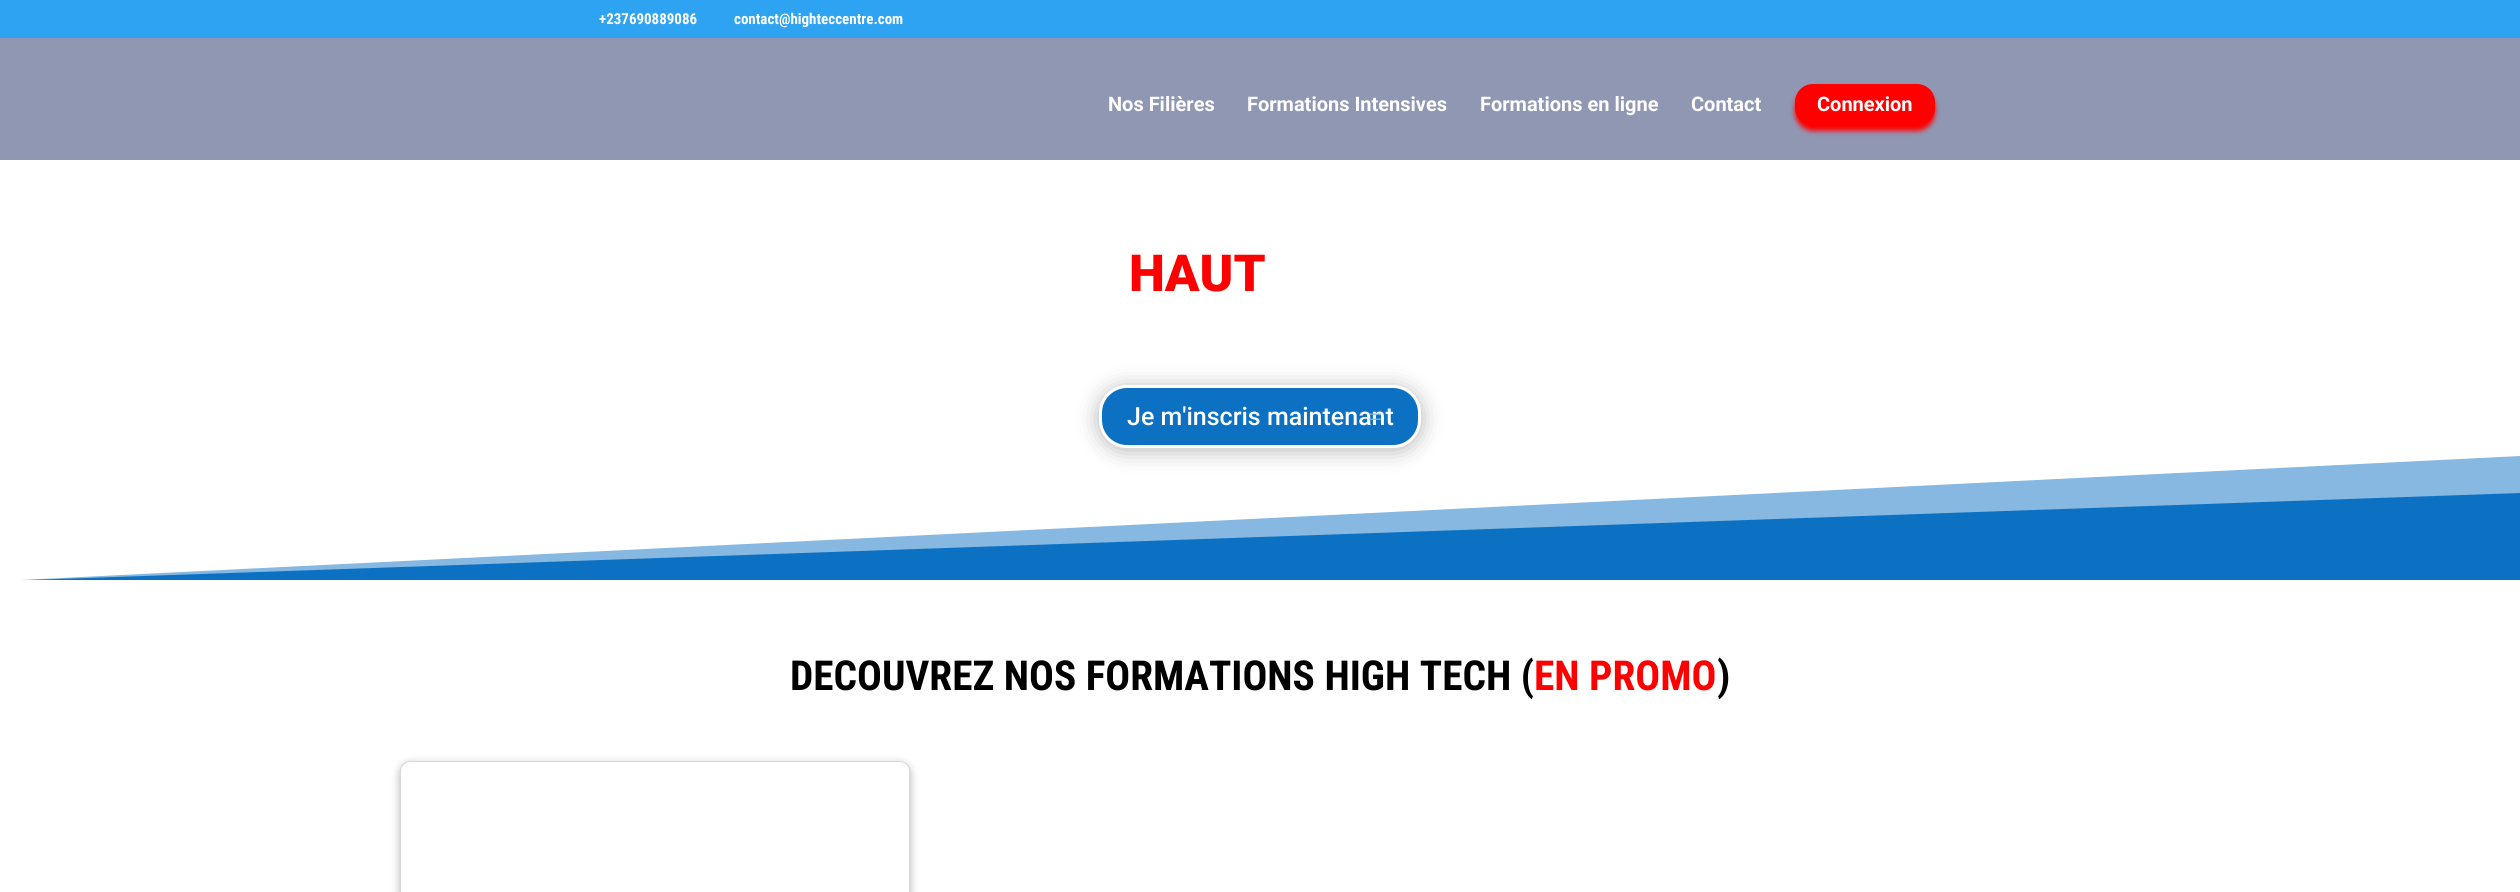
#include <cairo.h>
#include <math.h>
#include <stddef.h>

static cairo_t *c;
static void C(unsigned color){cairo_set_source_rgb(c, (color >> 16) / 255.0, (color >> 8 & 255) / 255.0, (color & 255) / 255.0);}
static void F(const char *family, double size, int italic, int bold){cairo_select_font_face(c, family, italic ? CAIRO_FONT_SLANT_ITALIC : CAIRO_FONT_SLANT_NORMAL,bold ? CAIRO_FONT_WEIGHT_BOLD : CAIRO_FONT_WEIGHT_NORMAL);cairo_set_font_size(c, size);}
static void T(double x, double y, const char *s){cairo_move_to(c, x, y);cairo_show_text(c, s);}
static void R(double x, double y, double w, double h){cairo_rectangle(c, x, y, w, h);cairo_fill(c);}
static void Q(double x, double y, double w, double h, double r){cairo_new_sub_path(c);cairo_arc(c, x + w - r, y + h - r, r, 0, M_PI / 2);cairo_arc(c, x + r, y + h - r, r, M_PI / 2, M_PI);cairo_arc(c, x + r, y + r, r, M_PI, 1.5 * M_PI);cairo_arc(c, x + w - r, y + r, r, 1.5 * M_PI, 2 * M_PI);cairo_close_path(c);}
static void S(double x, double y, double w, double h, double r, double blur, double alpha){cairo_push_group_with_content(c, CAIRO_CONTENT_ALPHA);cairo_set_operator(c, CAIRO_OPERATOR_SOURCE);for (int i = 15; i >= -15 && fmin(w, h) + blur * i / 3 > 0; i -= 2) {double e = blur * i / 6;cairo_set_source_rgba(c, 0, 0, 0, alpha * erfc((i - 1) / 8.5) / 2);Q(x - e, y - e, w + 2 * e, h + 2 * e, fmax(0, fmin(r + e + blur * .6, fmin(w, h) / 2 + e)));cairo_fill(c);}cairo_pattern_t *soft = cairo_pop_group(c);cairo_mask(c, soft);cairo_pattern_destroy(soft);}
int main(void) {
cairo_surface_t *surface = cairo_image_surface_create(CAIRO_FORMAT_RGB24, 2520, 892);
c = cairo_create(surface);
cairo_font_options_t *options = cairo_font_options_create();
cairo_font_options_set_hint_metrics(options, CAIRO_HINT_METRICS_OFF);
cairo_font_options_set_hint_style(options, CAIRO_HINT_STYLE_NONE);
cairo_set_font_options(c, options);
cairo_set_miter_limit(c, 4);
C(0xffffff);
cairo_paint(c);
C(0x2ea3f2);
R(0,0,2520,38);
F("Roboto Condensed",15,0,1);
C(0xffffff);
T(599,24,"+237690889086");
T(734,24,"contact@highteccentre.com");
C(0x9097b3);
R(0,38,2520,122);
F("Roboto",20,0,1);
C(0xffffff);
T(1108,111,"Nos Filières");
T(1247,111,"Formations Intensives");
T(1480,111,"Formations en ligne");
T(1691,111,"Contact");
C(0xff0000);
S(1795,89,140,42,18,2.5,1);
C(0xff0000);
Q(1795,84,140,42,18);
cairo_fill(c);
C(0xffffff);
T(1817,111,"Connexion");
F("Roboto Black",51,0,0);
C(0xff0000);
T(1129,291,"HAUT");
cairo_save(c);
cairo_rectangle(c,0,455,2520,125);
cairo_clip(c);
C(0x86b8e1);
cairo_new_path(c);
cairo_move_to(c,2520,456);
cairo_line_to(c,2520,581);
cairo_line_to(c,0,581);
cairo_close_path(c);
cairo_fill(c);
cairo_restore(c);
C(0x000000);
S(1099,388,322,62,28,11,.3);
C(0x0c71c3);
Q(1100.5,386.5,319,60,26.5);
cairo_fill_preserve(c);
C(0xffffff);
cairo_set_line_width(c,3);
cairo_stroke(c);
F("Roboto Medium",25,0,0);
T(1127,425,"Je m'inscris maintenant");
F("Liberation Serif",25,0,0);
C(0x83b6e0);
T(1368,425,"=");
cairo_save(c);
cairo_rectangle(c,0,455,2520,125);
cairo_clip(c);
C(0x0c71c3);
cairo_new_path(c);
cairo_move_to(c,2520,493);
cairo_line_to(c,2520,581);
cairo_line_to(c,0,581);
cairo_close_path(c);
cairo_fill(c);
cairo_restore(c);
F("Roboto Condensed",41.25,0,1);
C(0x000000);
T(790,690,"DECOUVREZ NOS FORMATIONS HIGH TECH (");
C(0xff0000);
T(1534,690,"EN PROMO");
C(0x000000);
T(1717,690,")");
C(0x000000);
S(400,764,510,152,10,4.5,.3);
C(0xffffff);
Q(400.5,761.5,509,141,9.5);
cairo_fill_preserve(c);
C(0xd8d8d8);
cairo_set_line_width(c,1);
cairo_stroke(c);
cairo_surface_write_to_png(surface, "o.png");
cairo_font_options_destroy(options);
cairo_destroy(c);
cairo_surface_destroy(surface);
return 0;
}
